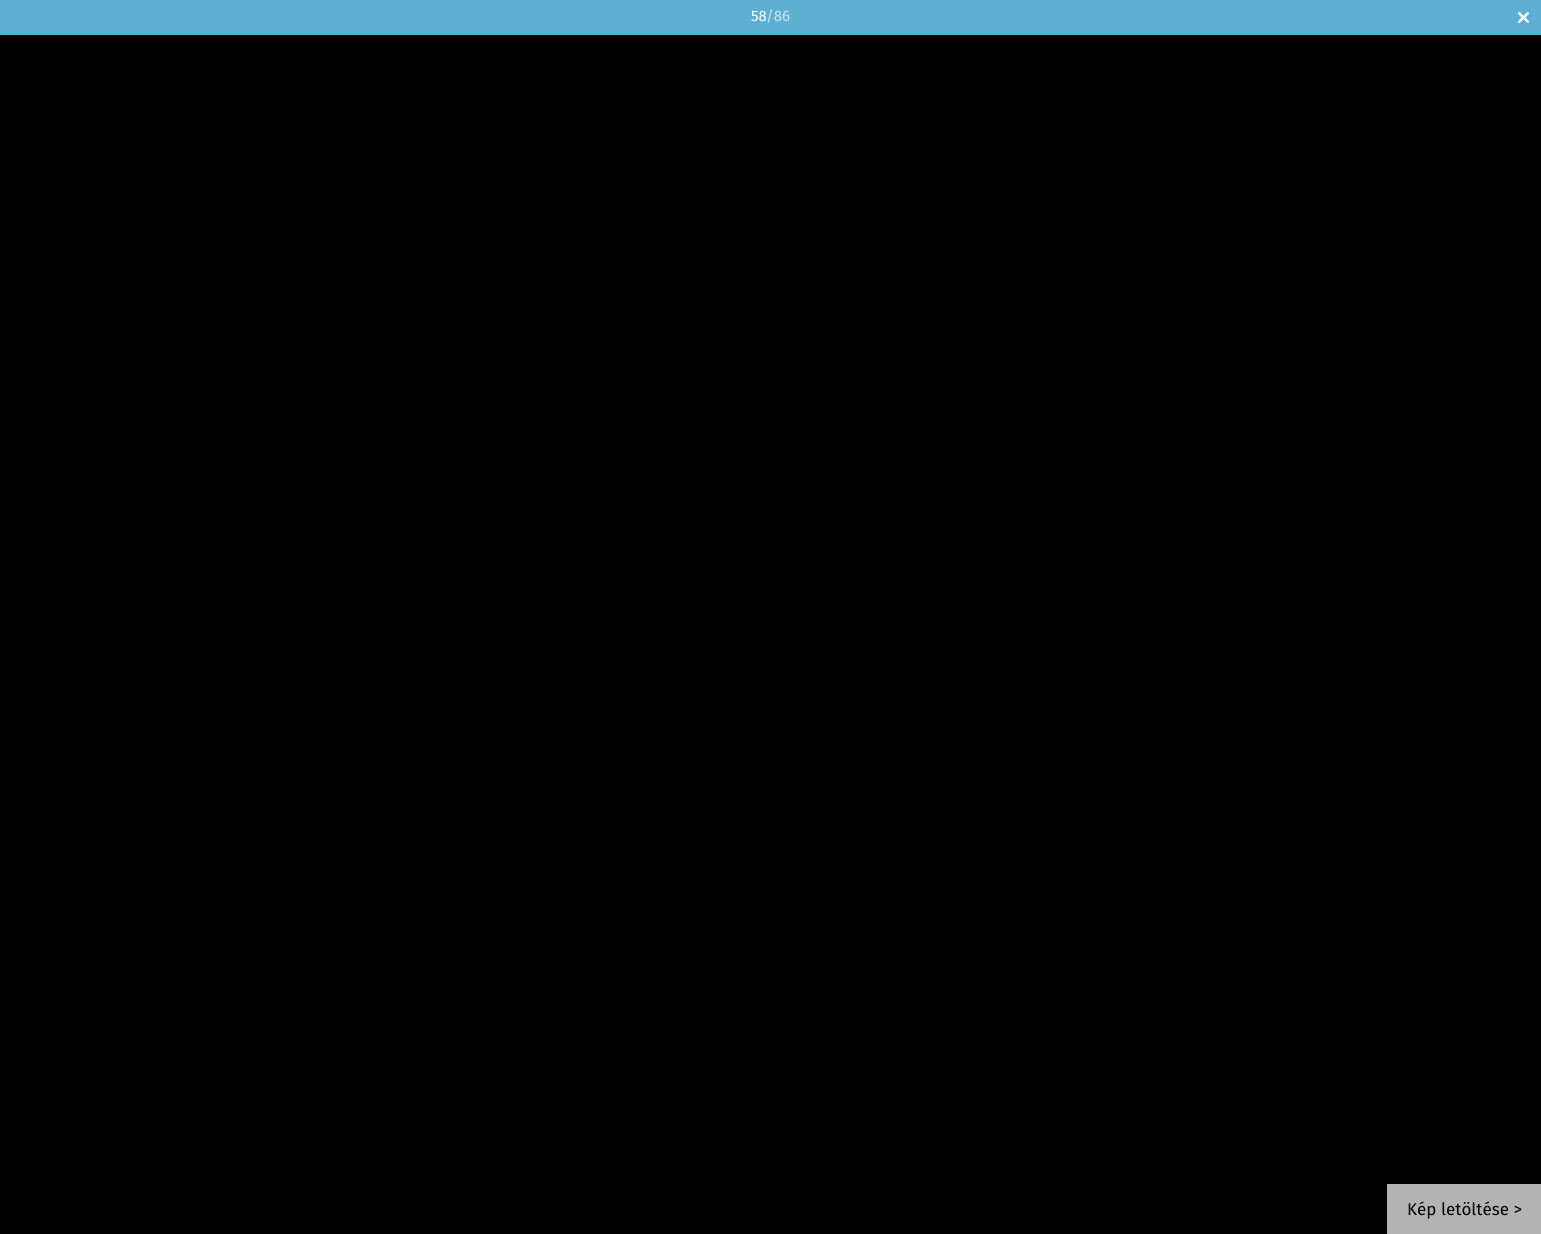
#include <cairo.h>
#include <math.h>
#include <stddef.h>

static cairo_t *c;
static void C(unsigned color){cairo_set_source_rgb(c, (color >> 16) / 255.0, (color >> 8 & 255) / 255.0, (color & 255) / 255.0);}
static void F(const char *family, double size, int italic, int bold){cairo_select_font_face(c, family, italic ? CAIRO_FONT_SLANT_ITALIC : CAIRO_FONT_SLANT_NORMAL,bold ? CAIRO_FONT_WEIGHT_BOLD : CAIRO_FONT_WEIGHT_NORMAL);cairo_set_font_size(c, size);}
static void T(double x, double y, const char *s){cairo_move_to(c, x, y);cairo_show_text(c, s);}
static void R(double x, double y, double w, double h){cairo_rectangle(c, x, y, w, h);cairo_fill(c);}
static void I(const char *path, double x, double y, double w, double h){cairo_surface_t *image = cairo_image_surface_create_from_png(path);cairo_save(c);cairo_set_source_surface(c, image, x, y);cairo_rectangle(c, x, y, w, h);cairo_fill(c);cairo_restore(c);cairo_surface_destroy(image);}
int main(void) {
cairo_surface_t *surface = cairo_image_surface_create(CAIRO_FORMAT_RGB24, 1541, 1234);
c = cairo_create(surface);
cairo_font_options_t *options = cairo_font_options_create();
cairo_font_options_set_hint_metrics(options, CAIRO_HINT_METRICS_OFF);
cairo_font_options_set_hint_style(options, CAIRO_HINT_STYLE_NONE);
cairo_set_font_options(c, options);
cairo_set_miter_limit(c, 4);
C(0x000000);
cairo_paint(c);
C(0x5eb0d2);
R(0,0,1541,35);
F("Fira Sans",15,0,0);
C(0xffffff);
T(751,21,"58");
C(0xc6e6f3);
T(766,21,"/86");
I("1.png",1518,12,11,11);
C(0xb3b3b3);
R(1387,1184,154,50);
F("Fira Sans",17,0,0);
C(0x000000);
T(1407,1215,"Kép letöltése >");
cairo_surface_write_to_png(surface, "o.png");
cairo_font_options_destroy(options);
cairo_destroy(c);
cairo_surface_destroy(surface);
return 0;
}
